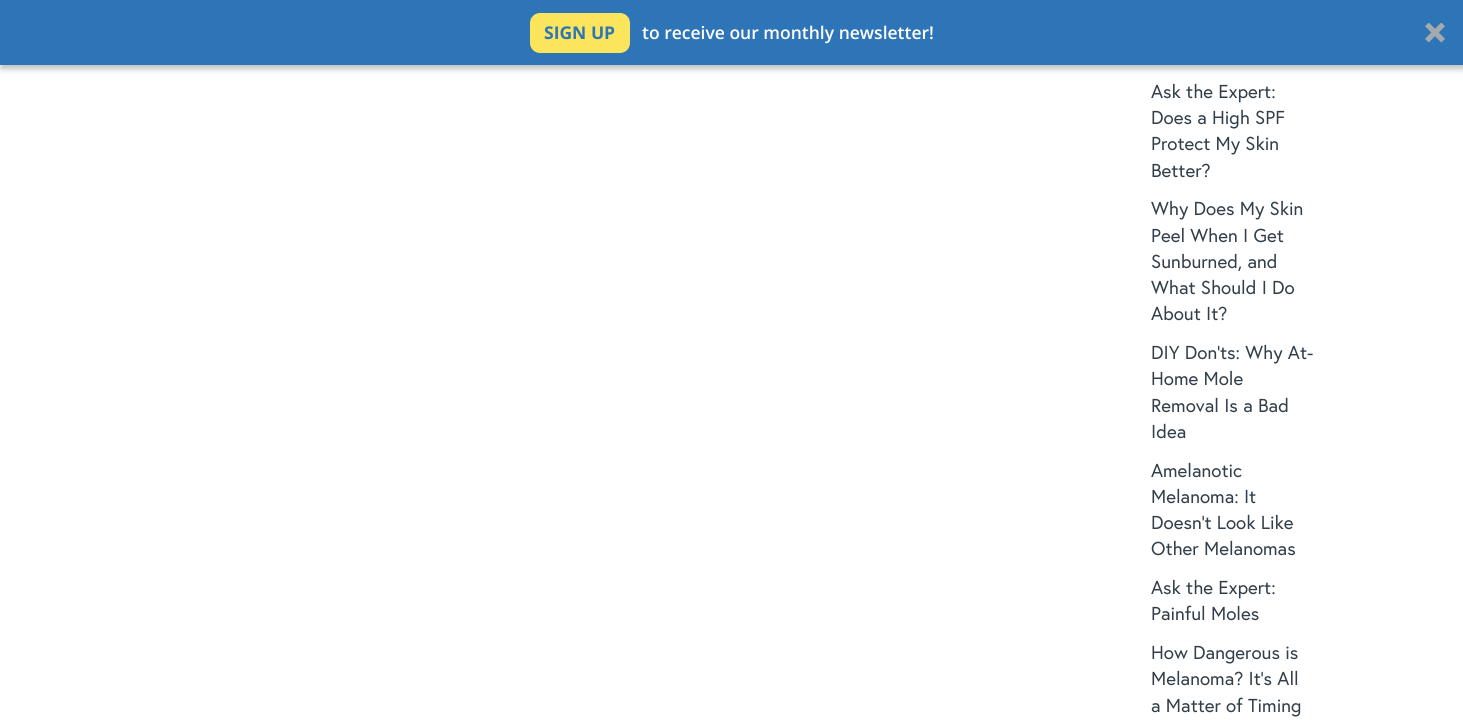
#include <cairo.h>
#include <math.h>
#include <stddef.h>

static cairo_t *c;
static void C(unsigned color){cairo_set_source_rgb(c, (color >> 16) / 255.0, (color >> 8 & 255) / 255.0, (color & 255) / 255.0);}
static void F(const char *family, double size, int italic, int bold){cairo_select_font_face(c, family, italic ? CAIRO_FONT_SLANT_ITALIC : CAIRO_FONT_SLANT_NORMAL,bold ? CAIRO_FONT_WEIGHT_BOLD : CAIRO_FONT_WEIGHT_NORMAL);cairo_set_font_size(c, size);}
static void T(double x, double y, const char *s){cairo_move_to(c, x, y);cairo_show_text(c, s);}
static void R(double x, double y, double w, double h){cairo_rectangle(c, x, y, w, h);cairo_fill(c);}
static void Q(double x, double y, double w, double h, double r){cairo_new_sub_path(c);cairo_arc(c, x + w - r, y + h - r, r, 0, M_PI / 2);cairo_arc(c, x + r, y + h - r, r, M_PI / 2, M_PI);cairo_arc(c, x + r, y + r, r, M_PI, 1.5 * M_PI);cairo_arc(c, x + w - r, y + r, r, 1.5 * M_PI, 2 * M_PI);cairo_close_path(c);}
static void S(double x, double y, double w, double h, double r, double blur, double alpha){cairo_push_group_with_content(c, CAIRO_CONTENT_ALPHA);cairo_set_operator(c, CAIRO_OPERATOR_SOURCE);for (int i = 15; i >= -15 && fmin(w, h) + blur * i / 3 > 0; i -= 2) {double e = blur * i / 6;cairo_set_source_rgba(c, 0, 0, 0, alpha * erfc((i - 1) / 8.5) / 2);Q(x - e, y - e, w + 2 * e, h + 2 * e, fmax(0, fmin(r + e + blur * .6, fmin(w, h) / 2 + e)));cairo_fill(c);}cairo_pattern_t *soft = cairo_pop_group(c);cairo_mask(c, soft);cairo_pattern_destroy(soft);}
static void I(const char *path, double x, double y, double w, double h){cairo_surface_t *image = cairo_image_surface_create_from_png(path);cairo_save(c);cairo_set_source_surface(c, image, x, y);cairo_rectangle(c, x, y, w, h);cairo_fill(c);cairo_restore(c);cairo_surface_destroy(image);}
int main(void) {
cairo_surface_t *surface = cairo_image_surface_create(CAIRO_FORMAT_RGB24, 1463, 721);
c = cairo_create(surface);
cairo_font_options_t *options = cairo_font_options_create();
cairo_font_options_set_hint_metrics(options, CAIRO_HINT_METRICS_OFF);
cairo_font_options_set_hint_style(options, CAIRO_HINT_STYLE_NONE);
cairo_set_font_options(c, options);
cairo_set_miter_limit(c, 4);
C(0xffffff);
cairo_paint(c);
C(0x000000);
S(1,4,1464,65,0,3,.25);
C(0x2e75b7);
R(0,0,1463,65);
C(0xfae55c);
Q(530,13,100,40,10);
cairo_fill(c);
F("Open Sans",17.5,0,1);
C(0x2e75b7);
T(544,39,"SIGN UP");
F("Open Sans SemiBold",17.5,0,0);
C(0xffffff);
T(642,39,"to receive our monthly newsletter!");
I("1.png",1425,23,20,20);
F("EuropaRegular",18.75,0,0);
C(0x323f4a);
T(1151,98,"Ask the Expert:");
T(1151,124,"Does a High SPF");
T(1151,150,"Protect My Skin");
T(1151,177,"Better?");
T(1151,215,"Why Does My Skin");
T(1151,242,"Peel When I Get");
T(1151,268,"Sunburned, and");
T(1151,294,"What Should I Do");
T(1151,320,"About It?");
T(1151,359,"DIY Don’ts: Why At-");
T(1151,385,"Home Mole");
T(1151,412,"Removal Is a Bad");
T(1151,438,"Idea");
T(1151,477,"Amelanotic");
T(1151,503,"Melanoma: It");
T(1151,529,"Doesn’t Look Like");
T(1151,555,"Other Melanomas");
T(1151,594,"Ask the Expert:");
T(1151,620,"Painful Moles");
T(1151,659,"How Dangerous is");
T(1151,685,"Melanoma? It’s All");
T(1151,712,"a Matter of Timing");
cairo_surface_write_to_png(surface, "o.png");
cairo_font_options_destroy(options);
cairo_destroy(c);
cairo_surface_destroy(surface);
return 0;
}
